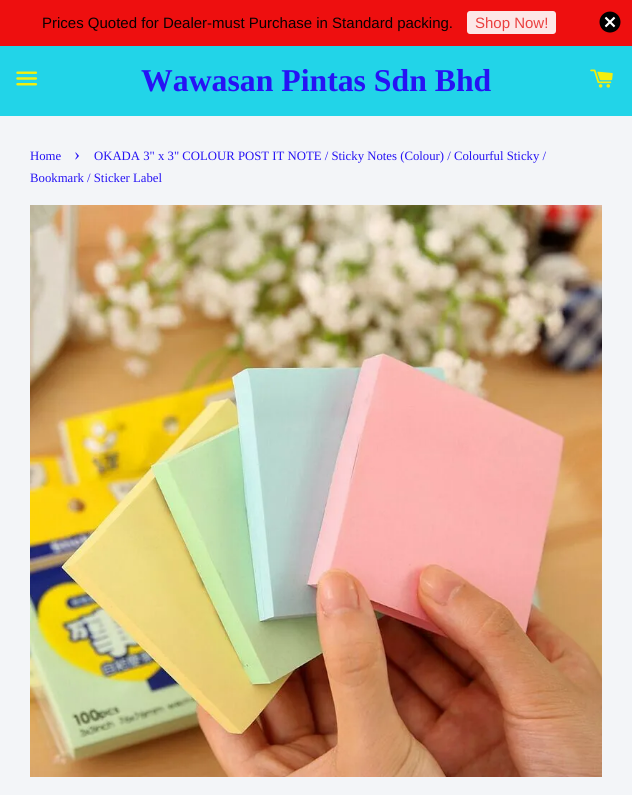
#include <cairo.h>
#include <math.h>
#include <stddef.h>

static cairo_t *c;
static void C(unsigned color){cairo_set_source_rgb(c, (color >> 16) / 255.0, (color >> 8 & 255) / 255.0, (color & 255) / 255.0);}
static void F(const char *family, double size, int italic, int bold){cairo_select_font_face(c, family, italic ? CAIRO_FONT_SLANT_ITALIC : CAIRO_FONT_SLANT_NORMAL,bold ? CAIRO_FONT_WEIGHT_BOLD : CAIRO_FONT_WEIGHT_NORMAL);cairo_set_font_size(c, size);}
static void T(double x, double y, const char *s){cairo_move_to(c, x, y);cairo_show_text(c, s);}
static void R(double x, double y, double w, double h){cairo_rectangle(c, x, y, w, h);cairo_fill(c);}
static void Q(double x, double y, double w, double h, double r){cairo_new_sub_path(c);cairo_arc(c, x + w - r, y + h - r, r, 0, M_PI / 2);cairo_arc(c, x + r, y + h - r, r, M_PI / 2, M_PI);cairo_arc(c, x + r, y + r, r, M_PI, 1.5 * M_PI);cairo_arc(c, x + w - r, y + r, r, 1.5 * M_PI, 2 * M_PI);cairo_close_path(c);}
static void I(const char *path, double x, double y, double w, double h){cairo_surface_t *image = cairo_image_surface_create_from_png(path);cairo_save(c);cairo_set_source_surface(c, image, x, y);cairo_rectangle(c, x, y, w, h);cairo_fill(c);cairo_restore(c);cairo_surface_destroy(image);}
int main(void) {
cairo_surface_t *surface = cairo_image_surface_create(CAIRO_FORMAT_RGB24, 632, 795);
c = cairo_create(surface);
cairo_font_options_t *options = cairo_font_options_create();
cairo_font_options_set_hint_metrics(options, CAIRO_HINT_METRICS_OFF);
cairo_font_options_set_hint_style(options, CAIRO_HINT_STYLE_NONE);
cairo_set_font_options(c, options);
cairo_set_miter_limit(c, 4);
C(0xf3f5f8);
cairo_paint(c);
C(0xee0f0f);
R(0,0,632,46);
F("Liberation Sans",15,0,0);
C(0x0b0000);
T(42,28,"Prices Quoted for Dealer-must Purchase in Standard packing.");
C(0xfde7e7);
Q(467,11,89,23,3);
cairo_fill(c);
C(0xea4040);
T(475,28,"Shop Now!");
I("1.png",599,11,22,22);
C(0x22d4e8);
R(0,46,632,70);
I("2.png",16,71,22,15);
F("Liberation Serif",31.75,0,1);
C(0x2613f4);
T(141,91,"Wawasan Pintas Sdn Bhd");
I("3.png",590,69,23,19);
F("Liberation Serif",12.75,0,0);
T(30,160,"Home");
F("Liberation Serif",18,0,0);
T(74,160,"›");
F("Liberation Serif",12.75,0,0);
T(94,160,"OKADA 3\" x 3\" COLOUR POST IT NOTE / Sticky Notes (Colour) / Colourful Sticky /");
T(30,182,"Bookmark / Sticker Label");
I("4.png",30,205,572,572);
cairo_surface_write_to_png(surface, "o.png");
cairo_font_options_destroy(options);
cairo_destroy(c);
cairo_surface_destroy(surface);
return 0;
}
